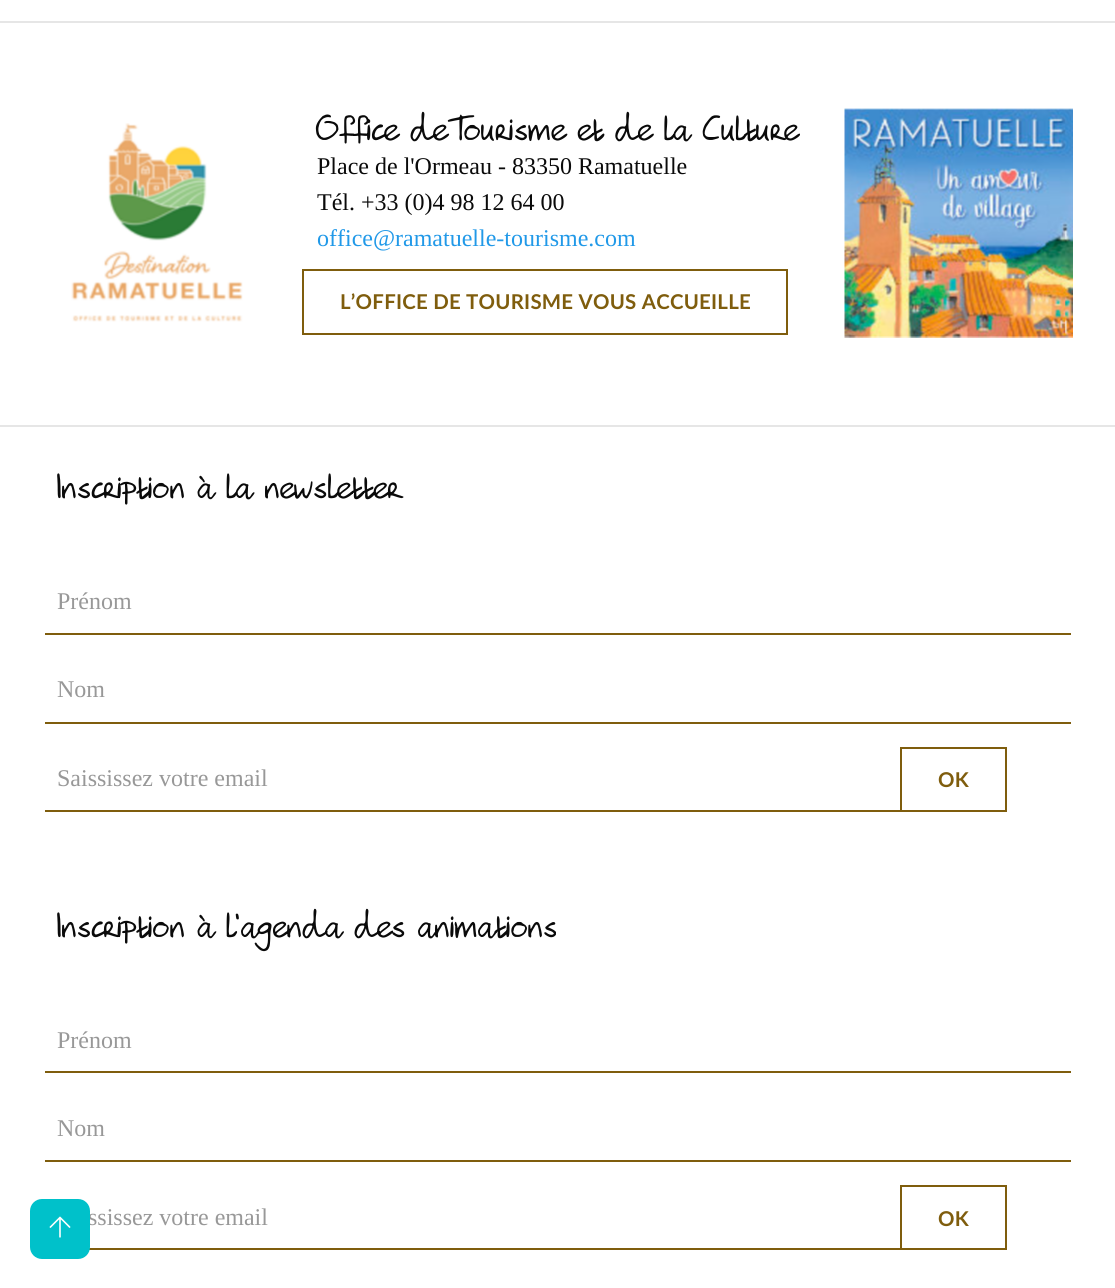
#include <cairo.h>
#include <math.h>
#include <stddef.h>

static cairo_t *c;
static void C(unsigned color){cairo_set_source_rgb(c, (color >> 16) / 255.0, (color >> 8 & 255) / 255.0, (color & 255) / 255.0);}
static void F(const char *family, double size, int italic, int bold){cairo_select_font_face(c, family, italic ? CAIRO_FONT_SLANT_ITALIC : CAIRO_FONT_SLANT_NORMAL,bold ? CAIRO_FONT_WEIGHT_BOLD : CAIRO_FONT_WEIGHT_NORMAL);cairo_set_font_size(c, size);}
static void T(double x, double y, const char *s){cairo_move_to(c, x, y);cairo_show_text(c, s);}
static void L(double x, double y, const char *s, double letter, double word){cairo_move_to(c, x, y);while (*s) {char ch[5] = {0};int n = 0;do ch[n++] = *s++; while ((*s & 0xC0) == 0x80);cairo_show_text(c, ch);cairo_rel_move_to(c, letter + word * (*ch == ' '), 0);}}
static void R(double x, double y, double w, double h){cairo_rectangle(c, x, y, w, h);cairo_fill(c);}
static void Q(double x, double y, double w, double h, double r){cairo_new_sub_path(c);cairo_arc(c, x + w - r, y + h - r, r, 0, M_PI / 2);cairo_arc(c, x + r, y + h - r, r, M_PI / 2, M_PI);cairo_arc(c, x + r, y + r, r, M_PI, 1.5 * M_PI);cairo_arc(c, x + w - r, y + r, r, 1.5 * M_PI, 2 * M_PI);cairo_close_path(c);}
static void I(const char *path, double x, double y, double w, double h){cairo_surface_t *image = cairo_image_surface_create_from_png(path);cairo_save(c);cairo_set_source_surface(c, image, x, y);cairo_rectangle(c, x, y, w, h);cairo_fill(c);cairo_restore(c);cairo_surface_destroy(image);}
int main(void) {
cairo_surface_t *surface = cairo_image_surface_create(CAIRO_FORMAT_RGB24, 1115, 1288);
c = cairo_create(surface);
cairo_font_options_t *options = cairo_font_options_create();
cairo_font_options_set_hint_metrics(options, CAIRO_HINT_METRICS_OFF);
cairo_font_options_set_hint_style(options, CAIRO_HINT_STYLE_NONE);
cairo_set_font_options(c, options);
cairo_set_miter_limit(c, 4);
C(0xffffff);
cairo_paint(c);
C(0xe6e6e6);
R(0,21,1115,2);
R(0,425,1115,2);
I("1.png",71,123,172,199);
F("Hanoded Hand",24,0,1);
C(0x0a0a0a);
T(317,140,"Office de Tourisme et de la Culture");
F("Liberation Serif",24,0,0);
T(317,174,"Place de l'Ormeau - 83350 Ramatuelle");
T(317,210,"Tél. +33 (0)4 98 12 64 00");
C(0x2199e8);
T(317,246,"office@ramatuelle-tourisme.com");
cairo_rectangle(c,303,270,484,64);
C(0x7f5d0d);
cairo_stroke(c);
F("Lato",20.4,0,1);
L(340,309,"L’OFFICE DE TOURISME VOUS ACCUEILLE",.25,0);
I("2.png",844,108,229,230);
F("Hanoded Hand",24,0,1);
C(0x0a0a0a);
T(57,498,"Inscription à la newsletter");
C(0x7f5d0d);
R(45,633,1026,2);
F("Liberation Serif",24,0,0);
C(0x989898);
T(57,609,"Prénom");
C(0x7f5d0d);
R(45,722,1026,2);
C(0x989898);
T(57,697,"Nom");
C(0x7f5d0d);
R(45,810,855,2);
C(0x989898);
T(57,786,"Saississez votre email");
cairo_rectangle(c,901,748,105,63);
C(0x7f5d0d);
cairo_stroke(c);
F("Lato",20.4,0,1);
L(938,787,"OK",.25,0);
F("Hanoded Hand",24,0,1);
C(0x0a0a0a);
T(57,937,"Inscription à l'agenda des animations");
C(0x7f5d0d);
R(45,1071,1026,2);
F("Liberation Serif",24,0,0);
C(0x989898);
T(57,1048,"Prénom");
C(0x7f5d0d);
R(45,1160,1026,2);
C(0x989898);
T(57,1136,"Nom");
C(0x7f5d0d);
R(89,1248,811,2);
C(0x989898);
T(88,1225,"ssissez votre email");
cairo_rectangle(c,901,1186,105,63);
C(0x7f5d0d);
cairo_stroke(c);
F("Lato",20.4,0,1);
L(938,1226,"OK",.25,0);
C(0x00c1ca);
Q(30,1199,60,60,12);
cairo_fill(c);
I("3.png",49,1216,22,22);
cairo_surface_write_to_png(surface, "o.png");
cairo_font_options_destroy(options);
cairo_destroy(c);
cairo_surface_destroy(surface);
return 0;
}
